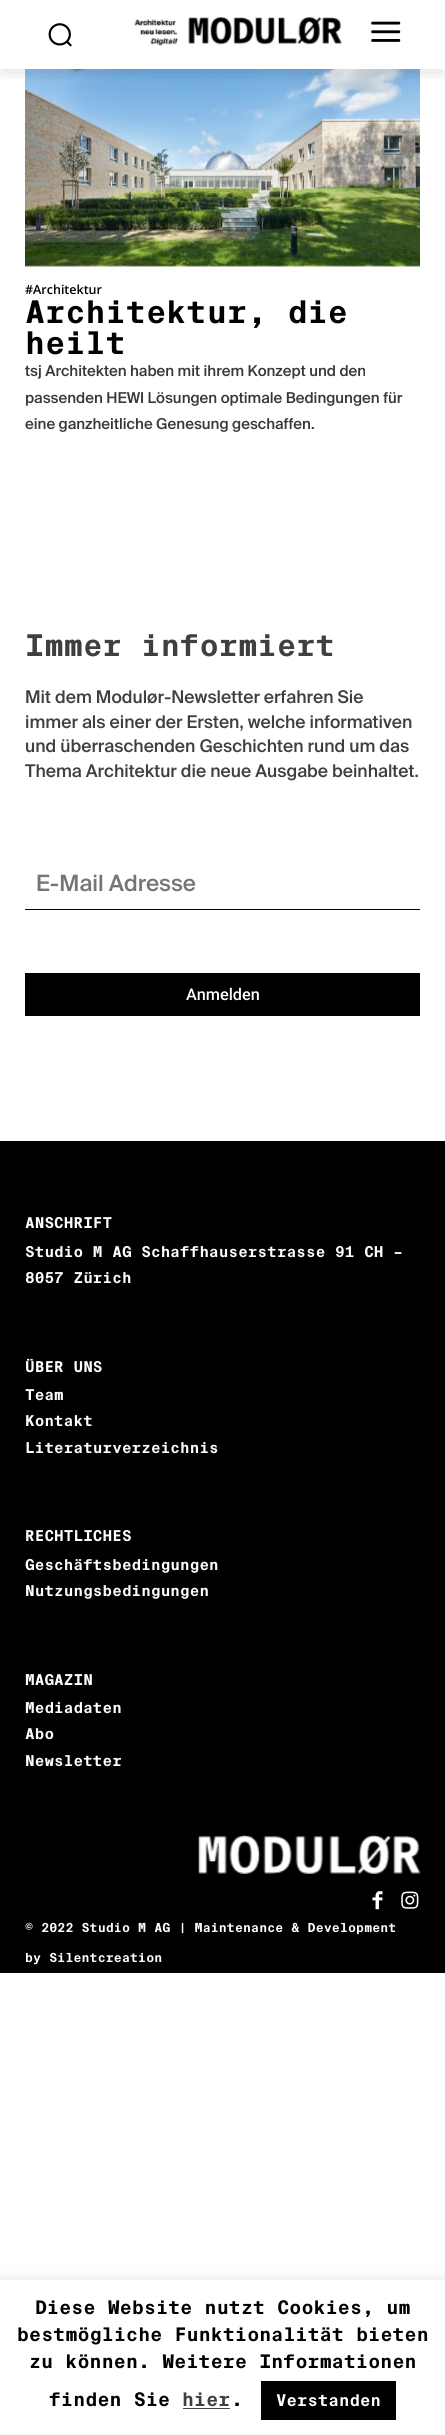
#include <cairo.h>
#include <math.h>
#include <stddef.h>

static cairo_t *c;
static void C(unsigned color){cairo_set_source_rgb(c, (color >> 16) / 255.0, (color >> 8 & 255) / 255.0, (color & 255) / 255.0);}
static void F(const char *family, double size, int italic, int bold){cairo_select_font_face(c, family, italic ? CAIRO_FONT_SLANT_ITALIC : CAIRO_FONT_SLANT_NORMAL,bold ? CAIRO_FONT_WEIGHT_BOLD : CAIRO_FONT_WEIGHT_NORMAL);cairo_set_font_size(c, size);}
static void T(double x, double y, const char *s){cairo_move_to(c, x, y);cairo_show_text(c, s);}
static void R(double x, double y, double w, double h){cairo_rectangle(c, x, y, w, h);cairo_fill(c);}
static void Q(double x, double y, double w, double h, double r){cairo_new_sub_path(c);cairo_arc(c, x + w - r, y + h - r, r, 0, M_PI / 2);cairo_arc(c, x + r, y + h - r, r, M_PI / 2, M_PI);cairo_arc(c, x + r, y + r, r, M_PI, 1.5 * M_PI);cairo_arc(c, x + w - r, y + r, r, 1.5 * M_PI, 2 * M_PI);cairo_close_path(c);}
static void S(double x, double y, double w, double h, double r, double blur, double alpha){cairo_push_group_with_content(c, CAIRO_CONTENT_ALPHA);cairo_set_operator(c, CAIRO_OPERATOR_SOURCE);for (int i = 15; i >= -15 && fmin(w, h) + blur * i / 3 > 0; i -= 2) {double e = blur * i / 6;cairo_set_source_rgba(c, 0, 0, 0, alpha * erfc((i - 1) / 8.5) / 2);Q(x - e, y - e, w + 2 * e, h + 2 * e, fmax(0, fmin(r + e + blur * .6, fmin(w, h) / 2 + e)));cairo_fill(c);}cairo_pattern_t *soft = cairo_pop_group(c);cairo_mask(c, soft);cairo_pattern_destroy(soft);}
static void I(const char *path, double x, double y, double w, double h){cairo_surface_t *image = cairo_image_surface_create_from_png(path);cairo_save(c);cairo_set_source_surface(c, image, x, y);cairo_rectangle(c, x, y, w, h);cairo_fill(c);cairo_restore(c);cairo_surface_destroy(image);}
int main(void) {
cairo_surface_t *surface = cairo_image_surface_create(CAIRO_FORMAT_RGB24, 445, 2435);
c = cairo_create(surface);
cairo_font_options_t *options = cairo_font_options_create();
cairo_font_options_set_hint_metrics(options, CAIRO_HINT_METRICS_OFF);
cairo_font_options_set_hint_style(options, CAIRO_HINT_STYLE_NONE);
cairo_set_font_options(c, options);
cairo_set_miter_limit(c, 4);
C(0xffffff);
cairo_paint(c);
I("1.png",48,23,24,24);
I("2.png",134,17,208,29);
I("3.png",371,21,30,21);
I("4.png",25,69,395,198);
cairo_save(c);
cairo_rectangle(c,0,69,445,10);
cairo_clip(c);
C(0x000000);
S(0,8,445,68,0,5,.08);
cairo_restore(c);
F("Open Sans SemiBold",12.5,0,0);
C(0x000000);
T(25,294,"#Architektur");
F("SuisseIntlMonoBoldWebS",31.25,0,1);
T(25,323,"Architektur, die");
T(25,354,"heilt");
F("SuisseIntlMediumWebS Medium",15,0,0);
C(0x383838);
T(25,376,"tsj Architekten haben mit ihrem Konzept und den");
T(25,403,"passenden HEWI Lösungen optimale Bedingungen für");
T(25,429,"eine ganzheitliche Genesung geschaffen.");
F("SuisseIntlMonoBoldWebS",30,0,1);
C(0x3f3f3f);
T(25,656,"Immer informiert");
F("SuisseIntlMediumWebS Medium",17.5,0,0);
T(25,703,"Mit dem Modulør-Newsletter erfahren Sie");
T(25,728,"immer als einer der Ersten, welche informativen");
T(25,752,"und überraschenden Geschichten rund um das");
T(25,777,"Thema Architektur die neue Ausgabe beinhaltet.");
C(0x000000);
R(25,909,395,1);
F("SuisseIntlMediumWebS Medium",22.5,0,0);
C(0x757575);
T(36,891,"E-Mail Adresse");
C(0x000000);
R(25,973,395,43);
F("Roboto Medium",16.25,0,0);
C(0xffffff);
T(186,1000,"Anmelden");
C(0x000000);
R(0,1141,445,832);
F("SuisseIntlMonoBoldWebS",15,0,1);
C(0xffffff);
T(25,1228,"ANSCHRIFT");
T(25,1257,"Studio M AG Schaffhauserstrasse 91 CH –");
T(25,1283,"8057 Zürich");
T(25,1372,"ÜBER UNS");
T(25,1400,"Team");
T(25,1426,"Kontakt");
T(25,1453,"Literaturverzeichnis");
T(25,1541,"RECHTLICHES");
T(25,1570,"Geschäftsbedingungen");
T(25,1596,"Nutzungsbedingungen");
T(25,1685,"MAGAZIN");
T(25,1713,"Mediadaten");
T(25,1739,"Abo");
T(25,1766,"Newsletter");
I("5.png",198,1835,223,39);
I("6.png",372,1891,11,19);
I("7.png",401,1891,18,18);
F("SuisseIntlMonoBoldWebS",12.5,0,1);
T(25,1932,"© 2022 Studio M AG | Maintenance & Development");
T(25,1962,"by Silentcreation");
C(0xacabab);
S(0,2279,445,155,0,6,.3);
C(0xffffff);
R(0,2280,445,155);
F("SuisseIntlMonoBoldWebS",18.75,0,1);
C(0x000000);
T(35,2314,"Diese Website nutzt Cookies, um");
T(17,2341,"bestmögliche Funktionalität bieten");
T(29,2368,"zu können. Weitere Informationen");
T(49,2406,"finden Sie");
C(0x3f3f3f);
T(182,2406,"hier");
C(0x444444);
R(183,2408,47,1);
C(0x000000);
T(231,2406,".");
R(261,2381,135,39);
F("SuisseIntlMonoBoldWebS",16.25,0,1);
C(0xffffff);
T(276,2406,"Verstanden");
cairo_surface_write_to_png(surface, "o.png");
cairo_font_options_destroy(options);
cairo_destroy(c);
cairo_surface_destroy(surface);
return 0;
}
